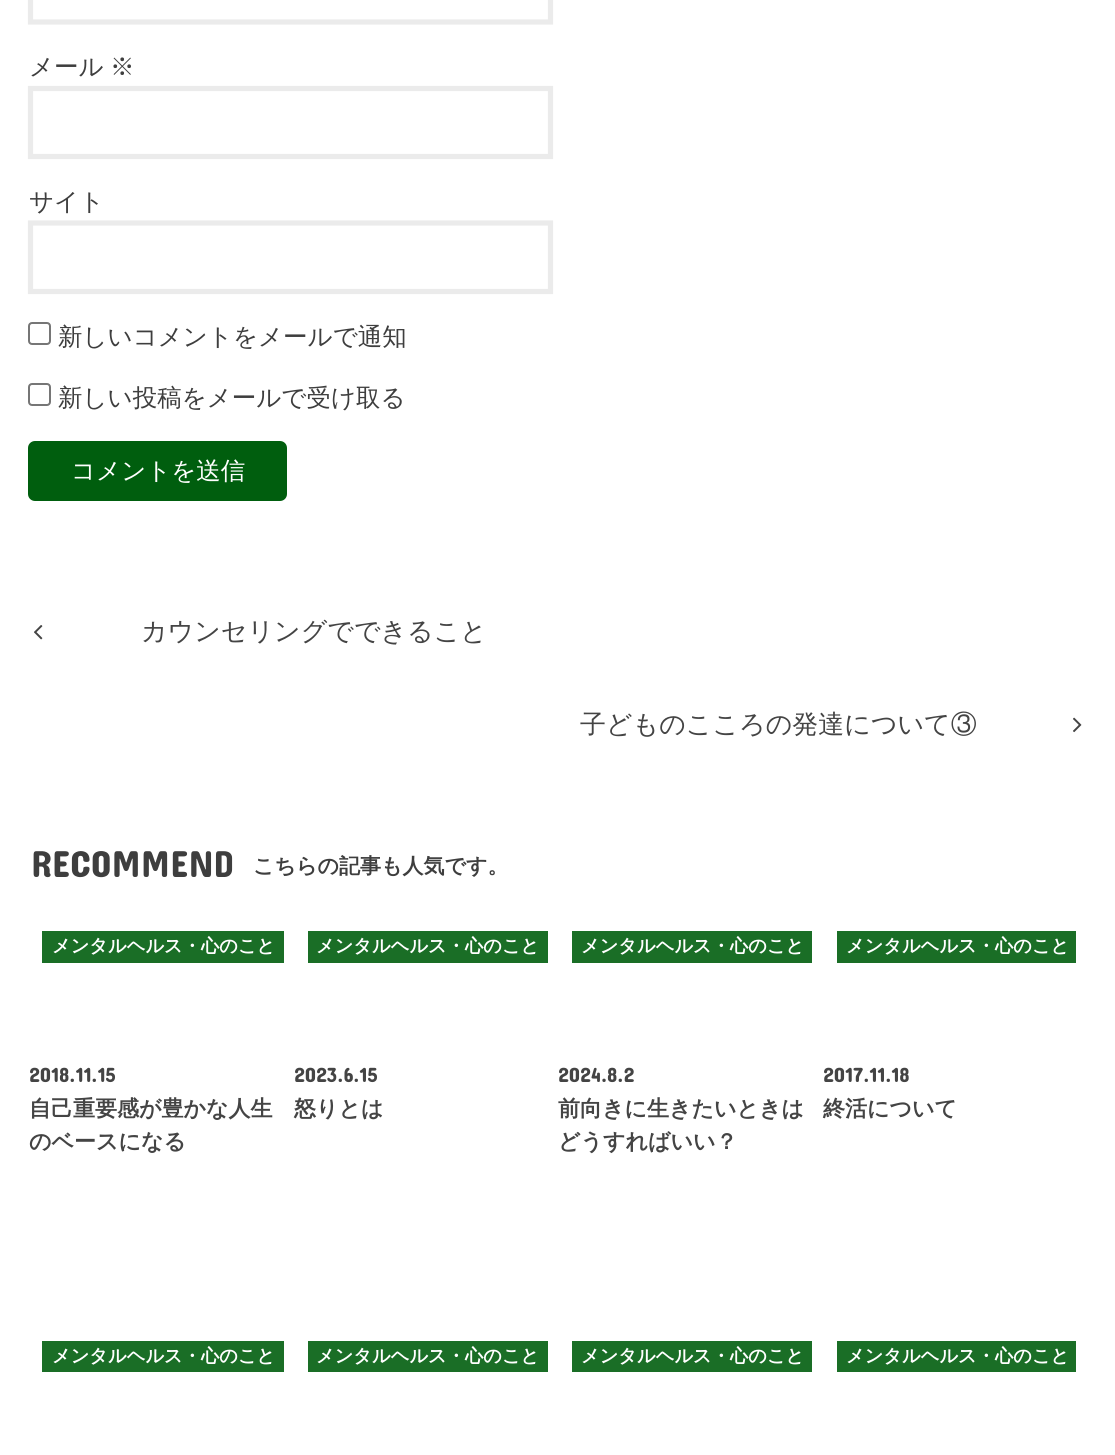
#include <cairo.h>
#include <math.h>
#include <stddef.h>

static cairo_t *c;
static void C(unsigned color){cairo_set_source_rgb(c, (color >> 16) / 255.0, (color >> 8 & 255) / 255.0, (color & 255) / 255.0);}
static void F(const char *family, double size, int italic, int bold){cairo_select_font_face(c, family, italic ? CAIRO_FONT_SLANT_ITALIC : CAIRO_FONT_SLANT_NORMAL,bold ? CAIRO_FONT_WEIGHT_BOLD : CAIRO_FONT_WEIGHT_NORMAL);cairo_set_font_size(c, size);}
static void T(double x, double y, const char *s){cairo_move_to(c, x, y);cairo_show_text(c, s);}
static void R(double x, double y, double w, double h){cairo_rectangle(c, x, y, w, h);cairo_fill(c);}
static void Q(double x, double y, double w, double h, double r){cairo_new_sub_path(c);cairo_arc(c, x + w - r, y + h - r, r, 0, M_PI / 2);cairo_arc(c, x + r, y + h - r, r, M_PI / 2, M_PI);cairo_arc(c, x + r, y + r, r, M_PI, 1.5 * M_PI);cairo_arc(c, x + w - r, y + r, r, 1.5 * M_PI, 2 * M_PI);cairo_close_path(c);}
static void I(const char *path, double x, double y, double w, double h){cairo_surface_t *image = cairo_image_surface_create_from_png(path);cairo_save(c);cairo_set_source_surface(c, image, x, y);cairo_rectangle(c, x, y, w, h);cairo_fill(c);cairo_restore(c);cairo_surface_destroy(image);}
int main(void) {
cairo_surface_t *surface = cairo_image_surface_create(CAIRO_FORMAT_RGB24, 1115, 1455);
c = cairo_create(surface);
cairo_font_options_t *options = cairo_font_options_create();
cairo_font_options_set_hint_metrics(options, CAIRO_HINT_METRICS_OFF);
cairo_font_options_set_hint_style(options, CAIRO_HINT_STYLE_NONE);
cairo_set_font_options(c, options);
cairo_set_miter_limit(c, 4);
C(0xffffff);
cairo_paint(c);
cairo_new_path(c);
cairo_move_to(c,30.5,-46.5);
cairo_line_to(c,550.5,-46.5);
cairo_line_to(c,550.5,22);
cairo_line_to(c,30.5,22);
cairo_close_path(c);
C(0xebebeb);
cairo_set_line_width(c,5.2);
cairo_stroke(c);
F("WenQuanYi Zen Hei Medium",24.5,0,0);
C(0x3e3e3e);
T(29,75,"メール");
T(110,75,"※");
cairo_new_path(c);
cairo_move_to(c,30.5,88.5);
cairo_line_to(c,550.5,88.5);
cairo_line_to(c,550.5,156.5);
cairo_line_to(c,30.5,156.5);
cairo_close_path(c);
C(0xebebeb);
cairo_stroke(c);
C(0x3e3e3e);
T(29,210,"サイト");
cairo_new_path(c);
cairo_move_to(c,30.5,223);
cairo_line_to(c,550.5,223);
cairo_line_to(c,550.5,291.5);
cairo_line_to(c,30.5,291.5);
cairo_close_path(c);
C(0xebebeb);
cairo_stroke(c);
Q(29,323,21,21,3);
C(0x767676);
cairo_set_line_width(c,2);
cairo_stroke(c);
C(0x3e3e3e);
T(58,345,"新しいコメントをメールで通知");
Q(29,384,21,21,3);
C(0x767676);
cairo_stroke(c);
C(0x3e3e3e);
T(58,406,"新しい投稿をメールで受け取る");
C(0x005e0e);
Q(28,441,259,60,7);
cairo_fill(c);
C(0xffffff);
T(71,479,"コメントを送信");
I("1.png",34,625,9,15);
F("WenQuanYi Zen Hei Medium",26,0,0);
C(0x444444);
T(141,640,"カウンセリングでできること");
T(580,733,"子どものこころの発達について③");
I("2.png",1073,717,9,16);
F("Concert One",37.75,0,0);
C(0x3e3e3e);
T(31,877,"RECOMMEND");
F("WenQuanYi Zen Hei",21,0,1);
T(253,873,"こちらの記事も人気です。");
C(0x1a6e26);
R(42,931,242,32);
F("WenQuanYi Zen Hei",18.25,0,1);
C(0xffffff);
T(52,952,"メンタルヘルス・心のこと");
F("Concert One",20.75,0,0);
C(0x444444);
T(29,1082,"2018.11.15");
F("WenQuanYi Zen Hei",22,0,1);
T(29,1116,"自己重要感が豊かな人生");
T(29,1149,"のベースになる");
C(0x1a6e26);
R(308,931,240,32);
F("WenQuanYi Zen Hei",18.25,0,1);
C(0xffffff);
T(316,952,"メンタルヘルス・心のこと");
F("Concert One",20.75,0,0);
C(0x444444);
T(294,1082,"2023.6.15");
F("WenQuanYi Zen Hei",22,0,1);
T(294,1116,"怒りとは");
C(0x1a6e26);
R(572,931,240,32);
F("WenQuanYi Zen Hei",18.25,0,1);
C(0xffffff);
T(581,952,"メンタルヘルス・心のこと");
F("Concert One",20.75,0,0);
C(0x444444);
T(558,1082,"2024.8.2");
F("WenQuanYi Zen Hei",22,0,1);
T(558,1116,"前向きに生きたいときは");
T(558,1149,"どうすればいい？");
C(0x1a6e26);
R(837,931,239,32);
F("WenQuanYi Zen Hei",18.25,0,1);
C(0xffffff);
T(846,952,"メンタルヘルス・心のこと");
F("Concert One",20.75,0,0);
C(0x444444);
T(823,1082,"2017.11.18");
F("WenQuanYi Zen Hei",22,0,1);
T(823,1116,"終活について");
C(0x1a6e26);
R(42,1341,242,31);
F("WenQuanYi Zen Hei",18.25,0,1);
C(0xffffff);
T(52,1362,"メンタルヘルス・心のこと");
C(0x1a6e26);
R(308,1341,240,31);
C(0xffffff);
T(316,1362,"メンタルヘルス・心のこと");
C(0x1a6e26);
R(572,1341,240,31);
C(0xffffff);
T(581,1362,"メンタルヘルス・心のこと");
C(0x1a6e26);
R(837,1341,239,31);
C(0xffffff);
T(846,1362,"メンタルヘルス・心のこと");
cairo_surface_write_to_png(surface, "o.png");
cairo_font_options_destroy(options);
cairo_destroy(c);
cairo_surface_destroy(surface);
return 0;
}
